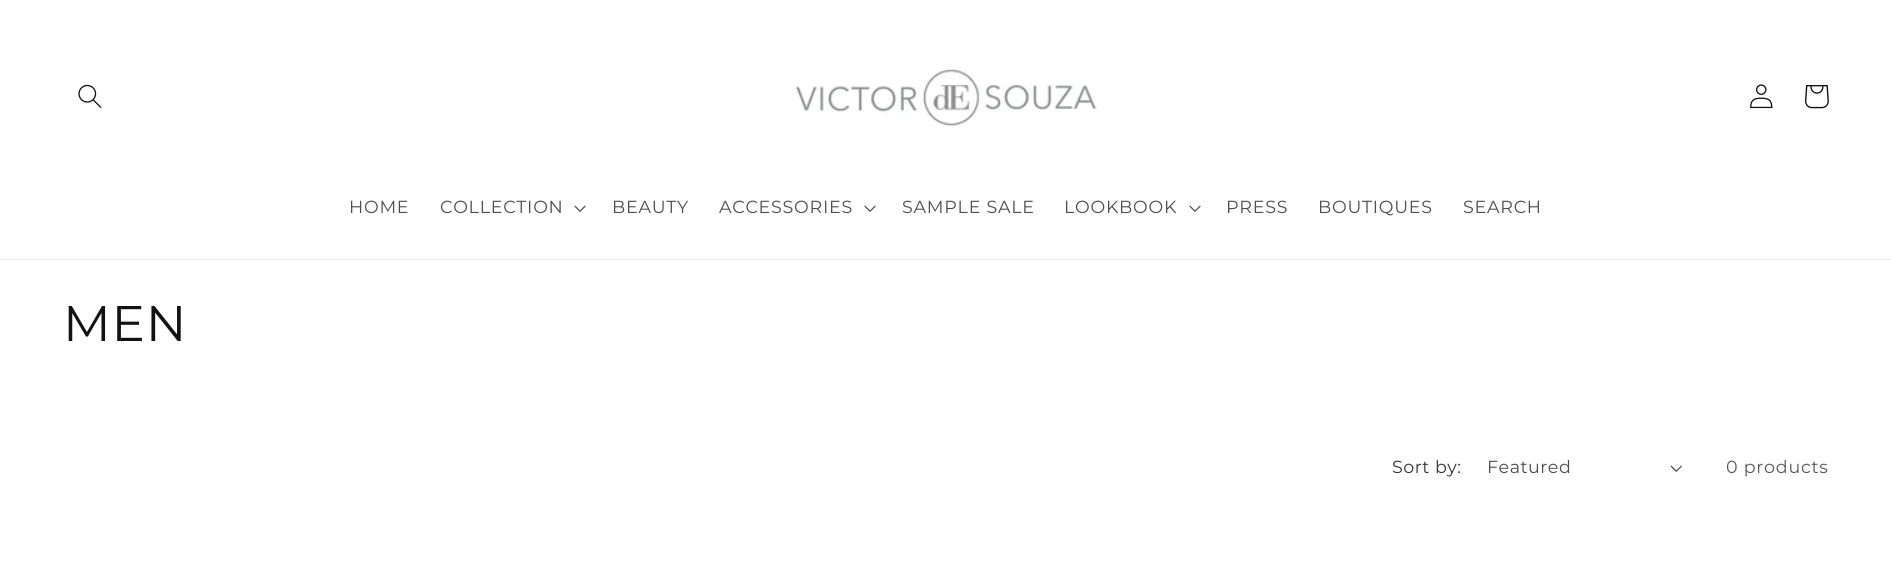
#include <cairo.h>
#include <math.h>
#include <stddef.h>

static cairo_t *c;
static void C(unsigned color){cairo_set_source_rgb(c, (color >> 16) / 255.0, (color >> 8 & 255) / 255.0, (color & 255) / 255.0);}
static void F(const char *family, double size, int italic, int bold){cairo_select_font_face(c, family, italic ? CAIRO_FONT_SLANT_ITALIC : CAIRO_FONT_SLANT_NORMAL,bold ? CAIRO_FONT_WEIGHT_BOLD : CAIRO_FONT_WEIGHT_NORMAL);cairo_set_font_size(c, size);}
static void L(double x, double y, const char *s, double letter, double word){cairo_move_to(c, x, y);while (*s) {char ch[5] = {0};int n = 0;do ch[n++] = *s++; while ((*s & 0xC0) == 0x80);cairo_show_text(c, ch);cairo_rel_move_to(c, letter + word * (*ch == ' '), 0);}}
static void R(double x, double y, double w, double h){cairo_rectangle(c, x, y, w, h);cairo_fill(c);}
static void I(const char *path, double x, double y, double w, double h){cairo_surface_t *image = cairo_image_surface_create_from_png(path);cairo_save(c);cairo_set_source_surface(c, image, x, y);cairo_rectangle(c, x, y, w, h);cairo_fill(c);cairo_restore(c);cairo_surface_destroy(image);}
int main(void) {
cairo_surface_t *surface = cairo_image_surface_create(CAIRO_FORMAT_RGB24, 1891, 584);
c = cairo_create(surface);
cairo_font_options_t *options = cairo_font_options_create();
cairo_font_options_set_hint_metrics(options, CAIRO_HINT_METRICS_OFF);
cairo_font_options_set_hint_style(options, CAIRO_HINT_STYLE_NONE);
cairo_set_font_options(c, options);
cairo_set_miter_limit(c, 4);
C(0xffffff);
cairo_paint(c);
C(0xececec);
R(0,259,1891,1);
I("1.png",78,84,24,24);
I("2.png",795,69,302,58);
I("3.png",1750,84,23,25);
I("4.png",1805,85,24,24);
F("Montserrat",17.5,0,0);
C(0x4d4d4d);
L(349,213,"HOME",.75,0);
L(440,213,"COLLECTION",.75,0);
I("5.png",574,205,12,7);
L(612,213,"BEAUTY",.75,0);
L(719,213,"ACCESSORIES",.75,0);
I("5.png",864,205,12,7);
L(902,213,"SAMPLE SALE",.75,0);
L(1064,213,"LOOKBOOK",.75,0);
I("5.png",1189,205,12,7);
L(1226,213,"PRESS",.75,0);
L(1318,213,"BOUTIQUES",.75,0);
L(1463,213,"SEARCH",.75,0);
F("Montserrat",50,0,0);
C(0x121212);
L(63,341,"MEN",.75,0);
F("Montserrat",17.5,0,0);
C(0x363636);
L(1392,473,"Sort by:",.5,0);
C(0x4d4d4d);
L(1487,473,"Featured",.5,0);
I("6.png",1670,465,12,7);
C(0x595959);
L(1726,473,"0 products",.75,0);
cairo_surface_write_to_png(surface, "o.png");
cairo_font_options_destroy(options);
cairo_destroy(c);
cairo_surface_destroy(surface);
return 0;
}
